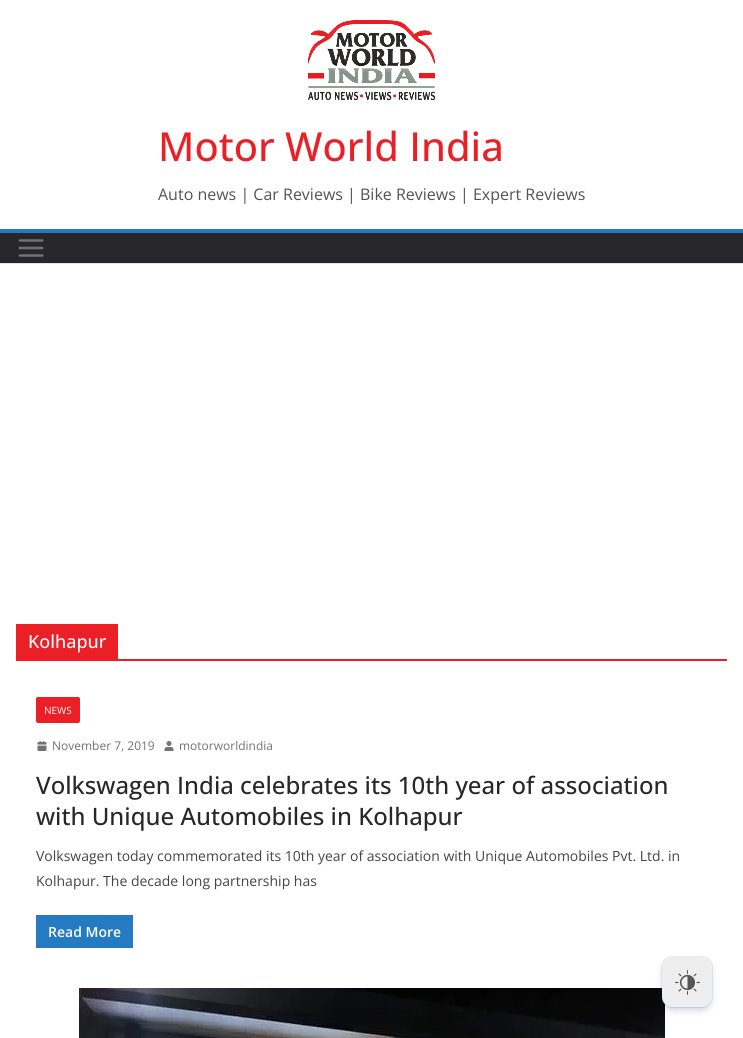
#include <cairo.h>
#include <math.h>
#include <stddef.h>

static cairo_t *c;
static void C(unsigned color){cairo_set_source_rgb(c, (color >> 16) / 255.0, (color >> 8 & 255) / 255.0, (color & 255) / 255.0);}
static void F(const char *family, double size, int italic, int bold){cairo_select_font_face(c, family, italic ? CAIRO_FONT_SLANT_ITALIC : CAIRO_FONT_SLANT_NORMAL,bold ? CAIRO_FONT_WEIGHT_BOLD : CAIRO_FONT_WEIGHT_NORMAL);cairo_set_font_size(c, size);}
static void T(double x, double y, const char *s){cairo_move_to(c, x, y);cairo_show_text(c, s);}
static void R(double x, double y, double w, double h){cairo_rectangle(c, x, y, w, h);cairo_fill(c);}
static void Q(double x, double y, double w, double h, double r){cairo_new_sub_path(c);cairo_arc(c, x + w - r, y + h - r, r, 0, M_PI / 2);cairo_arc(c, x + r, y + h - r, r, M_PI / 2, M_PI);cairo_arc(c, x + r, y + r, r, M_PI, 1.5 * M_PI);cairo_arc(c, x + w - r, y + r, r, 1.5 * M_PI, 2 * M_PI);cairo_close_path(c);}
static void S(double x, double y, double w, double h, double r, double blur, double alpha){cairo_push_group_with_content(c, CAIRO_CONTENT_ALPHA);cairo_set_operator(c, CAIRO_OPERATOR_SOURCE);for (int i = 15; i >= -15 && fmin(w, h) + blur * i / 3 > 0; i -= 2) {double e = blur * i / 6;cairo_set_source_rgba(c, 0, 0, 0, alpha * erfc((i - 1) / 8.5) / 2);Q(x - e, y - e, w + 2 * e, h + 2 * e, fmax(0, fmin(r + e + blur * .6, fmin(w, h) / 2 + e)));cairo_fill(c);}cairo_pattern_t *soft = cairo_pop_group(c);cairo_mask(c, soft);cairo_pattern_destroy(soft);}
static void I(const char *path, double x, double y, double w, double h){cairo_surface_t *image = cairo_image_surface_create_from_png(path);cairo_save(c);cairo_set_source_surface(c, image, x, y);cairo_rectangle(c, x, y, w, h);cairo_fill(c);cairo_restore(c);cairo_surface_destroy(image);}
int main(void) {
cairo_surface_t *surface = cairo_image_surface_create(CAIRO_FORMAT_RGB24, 743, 1038);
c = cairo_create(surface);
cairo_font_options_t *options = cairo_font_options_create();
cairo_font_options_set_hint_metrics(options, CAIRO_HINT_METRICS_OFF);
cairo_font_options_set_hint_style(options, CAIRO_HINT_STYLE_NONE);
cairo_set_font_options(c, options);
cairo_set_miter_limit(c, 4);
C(0xffffff);
cairo_paint(c);
C(0xe4e4e7);
R(0,263,743,1);
I("1.png",308,20,127,80);
F("Open Sans Medium",40,0,0);
C(0xea2026);
T(158,161,"Motor World India");
F("Open Sans",16,0,0);
C(0x52525b);
T(158,200,"Auto news | Car Reviews | Bike Reviews | Expert Reviews");
C(0x27272a);
R(0,233,743,30);
C(0x257bc1);
R(0,229,743,4);
I("2.png",18,239,26,18);
C(0xea2026);
R(16,659,711,2);
R(16,624,102,35);
F("Open Sans Medium",18,0,0);
C(0xffffff);
T(28,648,"Kolhapur");
C(0xea2026);
Q(36,697,44,26,2);
cairo_fill(c);
F("Open Sans",10,0,0);
C(0xffffff);
T(44,714,"NEWS");
I("3.png",37,741,10,10);
F("Open Sans",12,0,0);
C(0x71717a);
T(52,750,"November 7, 2019");
I("4.png",164,741,10,10);
T(179,750,"motorworldindia");
F("Open Sans Medium",24,0,0);
C(0x27272a);
T(36,794,"Volkswagen India celebrates its 10th year of association");
T(36,825,"with Unique Automobiles in Kolhapur");
F("Open Sans",14,0,0);
C(0x444444);
T(36,861,"Volkswagen today commemorated its 10th year of association with Unique Automobiles Pvt. Ltd. in");
T(36,886,"Kolhapur. The decade long partnership has");
C(0xea2026);
R(36,915,97,33);
C(0x257bc1);
Q(36,915,97,33,2);
cairo_fill(c);
F("Open Sans SemiBold",14,0,0);
C(0xffffff);
T(48,937,"Read More");
I("5.png",79,988,586,50);
Q(661.5,956.5,51,51,10.5);
cairo_set_source_rgba(c,0.035,0.118,0.259,0.08);
cairo_set_line_width(c,1);
cairo_stroke(c);
C(0x091e42);
S(664,963,46,46,8,4,.25);
C(0xeeeeee);
Q(662,957,50,50,10);
cairo_fill(c);
I("6.png",675,970,25,25);
cairo_surface_write_to_png(surface, "o.png");
cairo_font_options_destroy(options);
cairo_destroy(c);
cairo_surface_destroy(surface);
return 0;
}
